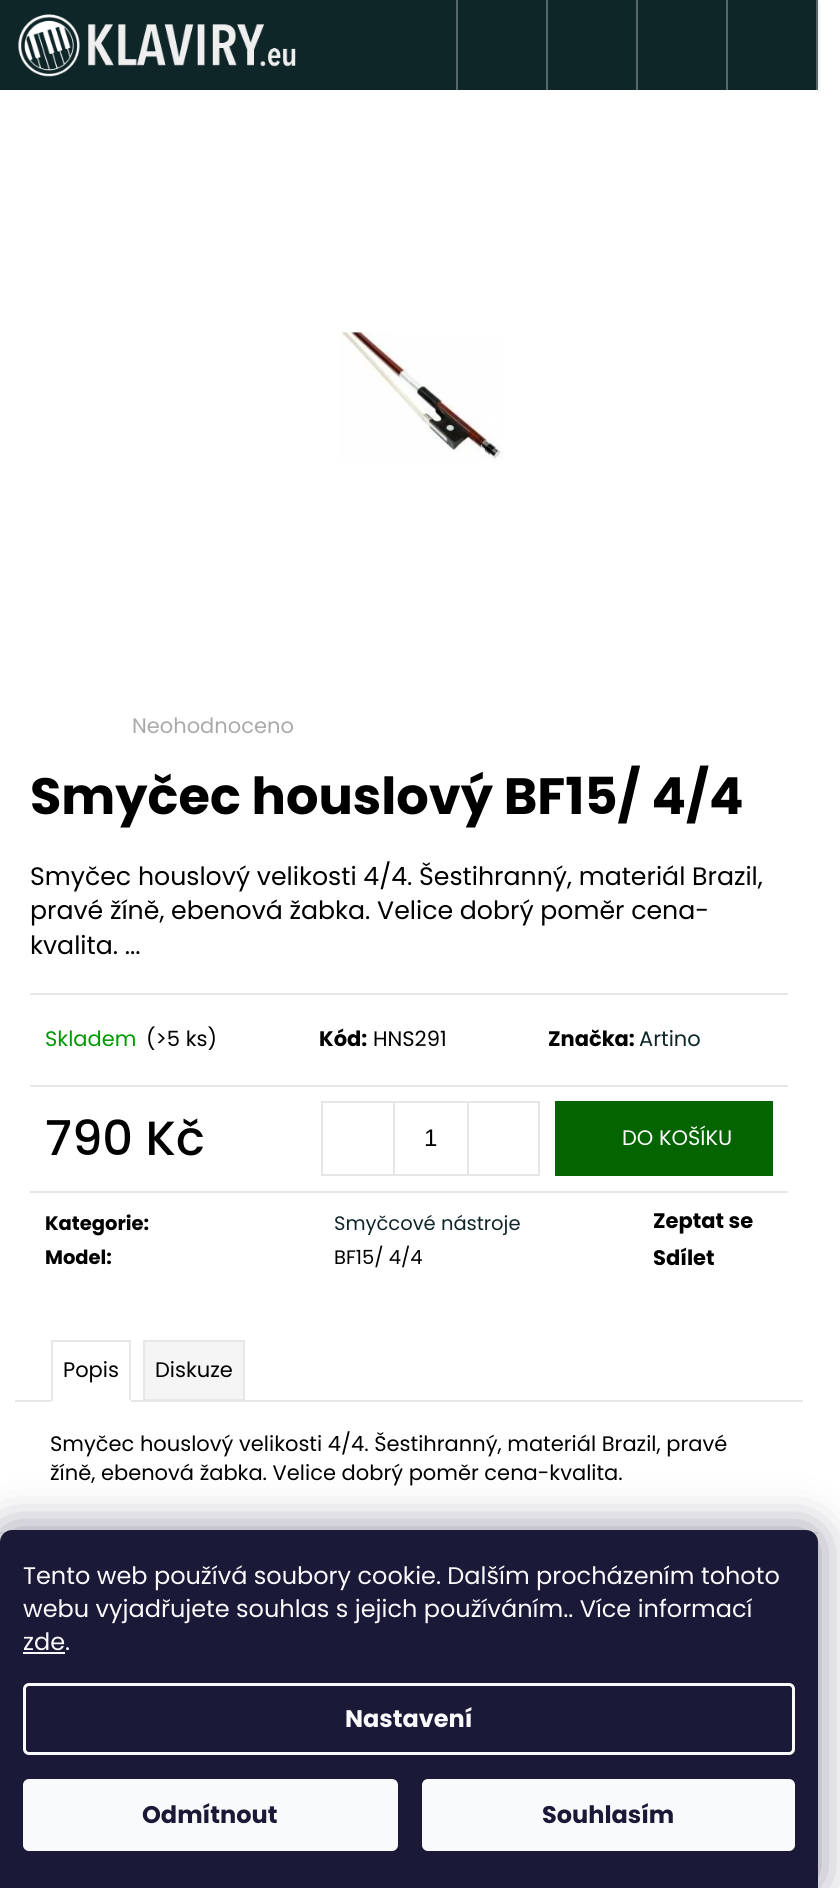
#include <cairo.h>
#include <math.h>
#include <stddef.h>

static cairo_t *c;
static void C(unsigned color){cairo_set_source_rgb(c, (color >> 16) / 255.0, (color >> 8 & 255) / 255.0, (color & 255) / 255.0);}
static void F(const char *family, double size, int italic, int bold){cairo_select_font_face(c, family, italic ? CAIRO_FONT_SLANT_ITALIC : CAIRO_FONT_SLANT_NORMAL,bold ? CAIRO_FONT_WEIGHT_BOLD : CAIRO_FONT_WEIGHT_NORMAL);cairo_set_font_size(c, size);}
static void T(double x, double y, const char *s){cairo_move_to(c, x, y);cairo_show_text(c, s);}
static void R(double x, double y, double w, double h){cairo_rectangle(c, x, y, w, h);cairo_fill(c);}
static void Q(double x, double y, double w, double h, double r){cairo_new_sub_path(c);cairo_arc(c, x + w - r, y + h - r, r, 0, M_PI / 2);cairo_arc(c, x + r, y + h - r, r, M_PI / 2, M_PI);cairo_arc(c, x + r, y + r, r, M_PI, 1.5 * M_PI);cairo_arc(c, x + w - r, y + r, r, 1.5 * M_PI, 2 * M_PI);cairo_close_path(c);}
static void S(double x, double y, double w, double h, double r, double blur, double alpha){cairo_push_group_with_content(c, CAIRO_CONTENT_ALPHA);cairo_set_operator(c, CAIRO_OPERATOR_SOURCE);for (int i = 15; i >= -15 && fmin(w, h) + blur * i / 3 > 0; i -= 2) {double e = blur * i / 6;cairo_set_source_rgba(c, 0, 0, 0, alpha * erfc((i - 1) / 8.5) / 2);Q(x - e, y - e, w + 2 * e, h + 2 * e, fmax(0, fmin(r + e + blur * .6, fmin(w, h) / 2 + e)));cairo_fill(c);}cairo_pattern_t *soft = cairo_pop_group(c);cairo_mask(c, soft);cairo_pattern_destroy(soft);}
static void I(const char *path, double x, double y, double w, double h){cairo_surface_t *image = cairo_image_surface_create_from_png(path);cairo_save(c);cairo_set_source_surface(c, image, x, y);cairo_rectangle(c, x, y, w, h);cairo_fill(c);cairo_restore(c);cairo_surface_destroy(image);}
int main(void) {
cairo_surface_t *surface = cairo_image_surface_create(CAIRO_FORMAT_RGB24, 840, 1888);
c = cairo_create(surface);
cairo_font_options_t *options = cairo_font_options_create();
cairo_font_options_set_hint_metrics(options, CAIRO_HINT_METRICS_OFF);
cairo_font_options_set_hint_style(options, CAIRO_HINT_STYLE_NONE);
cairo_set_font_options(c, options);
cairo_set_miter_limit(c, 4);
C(0xffffff);
cairo_paint(c);
C(0x000000);
S(0,2,818,90,0,1.5,.16);
C(0x0f2629);
R(0,0,816,90);
I("1.png",18,14,278,63);
C(0x576769);
R(816,0,2,90);
R(456,0,2,90);
R(546,0,2,90);
R(636,0,2,90);
R(726,0,2,90);
C(0xffffff);
R(0,90,818,4);
I("2.png",339,329,164,133);
F("Poppins",21,0,0);
C(0xaaaaaa);
T(132,733,"Neohodnoceno");
F("Poppins",51,0,1);
C(0x000000);
T(30,814,"Smyčec houslový BF15/ 4/4");
F("Poppins",25.2,0,0);
T(30,885,"Smyčec houslový velikosti 4/4. Šestihranný, materiál Brazil,");
T(30,919,"pravé žíně, ebenová žabka. Velice dobrý poměr cena-");
T(30,954,"kvalita. ...");
C(0xe7e7e7);
R(30,993,758,2);
R(30,1085,758,2);
F("Poppins",21,0,0);
C(0x009901);
T(45,1046,"Skladem");
C(0x000000);
T(146,1046,"(>5 ks)");
F("Poppins",21,0,1);
T(319,1046,"Kód:");
F("Poppins",21,0,0);
T(373,1046,"HNS291");
F("Poppins",21,0,1);
T(548,1046,"Značka:");
F("Poppins",21,0,0);
C(0x0f2629);
T(639,1046,"Artino");
C(0xe7e7e7);
R(30,1191,758,2);
F("Poppins Medium",48,0,0);
C(0x000000);
T(45,1155,"790 Kč");
cairo_rectangle(c,322,1102,217,73);
C(0xe6e6e6);
cairo_stroke(c);
R(393,1103,2,72);
F("Liberation Sans",24,0,0);
C(0x000000);
T(424,1146,"1");
C(0xe6e6e6);
R(467,1103,2,72);
C(0x036400);
R(555,1101,218,75);
F("Poppins",21,0,0);
C(0xffffff);
T(622,1145,"DO KOŠÍKU");
F("Poppins",19.5,0,1);
C(0x000000);
T(45,1230,"Kategorie:");
F("Poppins",19.5,0,0);
C(0x0f2629);
T(334,1230,"Smyčcové nástroje");
F("Poppins",19.5,0,1);
C(0x000000);
T(45,1264,"Model:");
F("Poppins",19.5,0,0);
T(334,1264,"BF15/ 4/4");
F("Poppins",21,0,1);
T(653,1228,"Zeptat se");
T(653,1265,"Sdílet");
C(0xe7e7e7);
R(15,1400,788,2);
R(51,1340,80,2);
R(129,1340,2,61);
C(0xffffff);
R(51,1400,80,2);
C(0xe7e7e7);
R(51,1340,2,61);
F("Poppins",21,0,0);
C(0x000000);
T(63,1377,"Popis");
C(0xf5f5f5);
cairo_rectangle(c,144,1341,100,59);
cairo_fill_preserve(c);
C(0xe7e7e7);
cairo_stroke(c);
C(0x000000);
T(155,1377,"Diskuze");
T(50,1451,"Smyčec houslový velikosti 4/4. Šestihranný, materiál Brazil, pravé");
T(50,1480,"žíně, ebenová žabka. Velice dobrý poměr cena-kvalita.");
C(0xf9f9f9);
R(0,1534,818,8);
C(0xe6e6e6);
R(0,1532,818,2);
C(0x1b1939);
S(0,1530,818,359,12,22.5,.5);
C(0x1a1937);
cairo_new_path(c);
cairo_move_to(c,12,1530);
cairo_line_to(c,806,1530);
cairo_curve_to(c,812.5,1530,818,1535.5,818,1542);
cairo_line_to(c,818,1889);
cairo_line_to(c,0,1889);
cairo_line_to(c,0,1542);
cairo_curve_to(c,0,1535.5,5.5,1530,12,1530);
cairo_close_path(c);
cairo_fill(c);
F("Poppins",24,0,0);
C(0xf8fafb);
T(23,1584,"Tento web používá soubory cookie. Dalším procházením tohoto");
T(23,1617,"webu vyjadřujete souhlas s jejich používáním.. Více informací");
T(23,1650,"zde.");
R(23,1652,42,2);
Q(24.5,1684.5,769,69,4.5);
cairo_set_line_width(c,3);
cairo_stroke(c);
F("Poppins",24,0,1);
T(345,1727,"Nastavení");
Q(23,1779,375,72,6);
cairo_fill(c);
C(0x1a1937);
T(142,1823,"Odmítnout");
C(0xf8fafb);
Q(422,1779,373,72,6);
cairo_fill(c);
C(0x1a1937);
T(542,1823,"Souhlasím");
cairo_surface_write_to_png(surface, "o.png");
cairo_font_options_destroy(options);
cairo_destroy(c);
cairo_surface_destroy(surface);
return 0;
}
